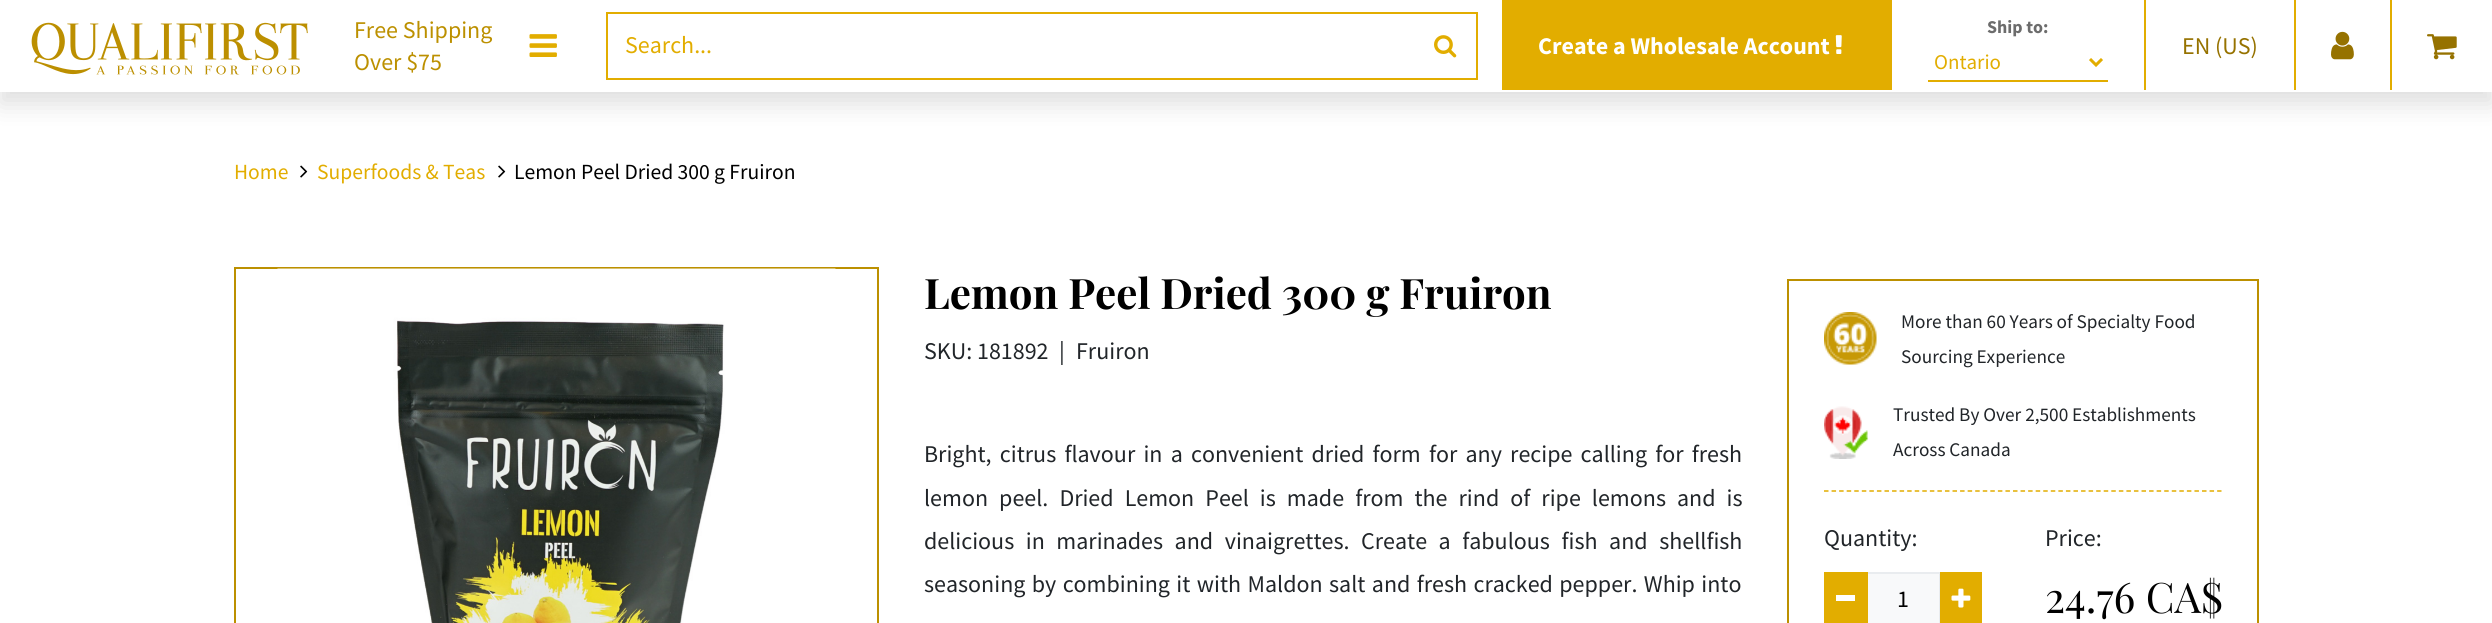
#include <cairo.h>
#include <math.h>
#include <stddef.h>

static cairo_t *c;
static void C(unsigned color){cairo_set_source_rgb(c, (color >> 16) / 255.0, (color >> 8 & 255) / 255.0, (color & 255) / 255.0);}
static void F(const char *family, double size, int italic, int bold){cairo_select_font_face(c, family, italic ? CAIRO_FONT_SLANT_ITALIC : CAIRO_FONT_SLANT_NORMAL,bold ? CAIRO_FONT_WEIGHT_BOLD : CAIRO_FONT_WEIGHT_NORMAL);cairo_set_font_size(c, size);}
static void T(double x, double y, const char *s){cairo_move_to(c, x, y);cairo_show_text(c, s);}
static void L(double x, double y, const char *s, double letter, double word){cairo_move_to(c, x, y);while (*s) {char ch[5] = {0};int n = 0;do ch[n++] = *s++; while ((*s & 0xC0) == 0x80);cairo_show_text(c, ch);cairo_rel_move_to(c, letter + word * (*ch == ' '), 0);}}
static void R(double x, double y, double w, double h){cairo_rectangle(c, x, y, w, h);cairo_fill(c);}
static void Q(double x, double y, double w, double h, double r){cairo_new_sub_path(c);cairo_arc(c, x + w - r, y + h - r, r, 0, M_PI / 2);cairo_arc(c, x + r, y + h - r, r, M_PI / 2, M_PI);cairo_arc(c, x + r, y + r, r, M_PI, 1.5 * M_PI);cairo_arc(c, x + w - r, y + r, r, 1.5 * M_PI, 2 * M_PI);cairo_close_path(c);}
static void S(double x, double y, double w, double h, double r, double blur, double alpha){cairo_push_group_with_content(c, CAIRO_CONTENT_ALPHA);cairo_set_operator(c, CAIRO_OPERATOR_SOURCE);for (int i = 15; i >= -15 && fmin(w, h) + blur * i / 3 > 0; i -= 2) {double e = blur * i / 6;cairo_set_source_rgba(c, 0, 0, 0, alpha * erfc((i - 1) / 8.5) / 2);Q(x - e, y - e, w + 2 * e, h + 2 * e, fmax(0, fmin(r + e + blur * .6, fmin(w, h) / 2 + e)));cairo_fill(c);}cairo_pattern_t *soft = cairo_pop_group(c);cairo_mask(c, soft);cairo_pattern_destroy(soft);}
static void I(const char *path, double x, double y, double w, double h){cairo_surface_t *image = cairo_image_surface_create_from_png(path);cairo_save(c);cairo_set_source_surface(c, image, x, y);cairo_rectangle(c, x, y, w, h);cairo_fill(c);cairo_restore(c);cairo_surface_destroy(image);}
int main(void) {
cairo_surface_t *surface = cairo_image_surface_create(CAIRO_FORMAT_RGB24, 2492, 623);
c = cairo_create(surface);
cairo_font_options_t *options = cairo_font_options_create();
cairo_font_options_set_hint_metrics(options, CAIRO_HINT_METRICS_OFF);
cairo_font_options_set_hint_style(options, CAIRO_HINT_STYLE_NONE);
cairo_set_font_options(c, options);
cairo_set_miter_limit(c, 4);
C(0xffffff);
cairo_paint(c);
C(0x222222);
S(0,12,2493,92,0,12,.15);
C(0xffffff);
R(0,0,2492,92);
I("1.png",31,22,277,53);
F("Source Sans Pro",24,0,0);
C(0xbc9000);
T(354,38,"Free Shipping");
T(354,70,"Over $75");
I("2.png",529,34,28,23);
cairo_rectangle(c,607,13,870,66);
C(0xe2ad00);
cairo_stroke(c);
T(625,53,"Search...");
I("3.png",1434,35,23,23);
R(1502,0,390,90);
F("Source Sans Pro",24,0,1);
C(0xffffff);
T(1538,54,"Create a Wholesale Account");
I("4.png",1835,35,7,19);
F("Source Sans Pro",18,0,1);
C(0x6c6c6c);
T(1987,33,"Ship to:");
C(0xe2ad00);
R(1928,80,180,2);
cairo_new_path(c);
cairo_move_to(c,2090,59);
cairo_line_to(c,2096,65);
cairo_line_to(c,2102,59);
cairo_set_line_width(c,3);
cairo_stroke(c);
F("Source Sans Pro",21,0,0);
T(1934,69,"Ontario");
R(2144,0,2,90);
F("Source Sans Pro",24,0,0);
C(0x967200);
T(2182,54,"EN (US)");
C(0xe2ad00);
R(2294,0,2,90);
I("5.png",2331,31,23,29);
R(2390,0,2,90);
I("6.png",2427,34,30,26);
F("Source Sans Pro",21.6,0,0);
T(234,179,"Home");
I("7.png",300,165,8,13);
T(317,179,"Superfoods & Teas");
I("7.png",498,165,8,13);
C(0x000000);
T(514,179,"Lemon Peel Dried 300 g Fruiron");
cairo_rectangle(c,235,268,643,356);
C(0xbc9000);
cairo_set_line_width(c,2);
cairo_stroke(c);
I("8.png",277,268,559,355);
F("Playfair Display",42,0,1);
C(0x000000);
T(924,309,"Lemon Peel Dried 300 g Fruiron");
F("Source Sans Pro",24,0,0);
C(0x212529);
T(924,359,"SKU: 181892");
T(1059,359,"|");
T(1076,359,"Fruiron");
L(924,462,"Bright, citrus flavour in a convenient dried form for any recipe calling for fresh",0,3.4);
L(924,506,"lemon peel. Dried Lemon Peel is made from the rind of ripe lemons and is",0,6.25);
L(924,549,"delicious in marinades and vinaigrettes. Create a fabulous fish and shellfish",0,6.75);
L(924,592,"seasoning by combining it with Maldon salt and fresh cracked pepper. Whip into",0,1.6);
cairo_rectangle(c,1788,280,470,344);
C(0xbc9000);
cairo_stroke(c);
cairo_new_path(c);
cairo_move_to(c,1824,491);
cairo_line_to(c,2221.5,491);
C(0xe2ad00);
cairo_set_line_width(c,1.5);
cairo_set_dash(c,(double[]){4.5,3.06},2,0);
cairo_stroke(c);
I("9.png",1824,312,53,53);
F("Source Sans Pro",19.25,0,0);
C(0x212529);
T(1901,328,"More than 60 Years of Specialty Food");
T(1901,363,"Sourcing Experience");
I("10.png",1824,406,45,53);
T(1893,421,"Trusted By Over 2,500 Establishments");
T(1893,456,"Across Canada");
F("Source Sans Pro",24,0,0);
T(1824,546,"Quantity:");
C(0xf8f9fa);
cairo_rectangle(c,1867,573,73,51);
cairo_fill_preserve(c);
C(0xe9ecef);
cairo_set_line_width(c,2);
cairo_set_dash(c,NULL,0,0);
cairo_stroke(c);
C(0xe2ad00);
R(1824,572,44,51);
C(0xffffff);
R(1836,595,19,6);
C(0x000000);
T(1897,607,"1");
C(0xe2ad00);
R(1940,572,42,51);
I("11.png",1951,588,20,20);
C(0x212529);
T(2045,546,"Price:");
F("Playfair Display",42,0,0);
C(0x000000);
T(2045,613,"24.76 CA$");
cairo_surface_write_to_png(surface, "o.png");
cairo_font_options_destroy(options);
cairo_destroy(c);
cairo_surface_destroy(surface);
return 0;
}
